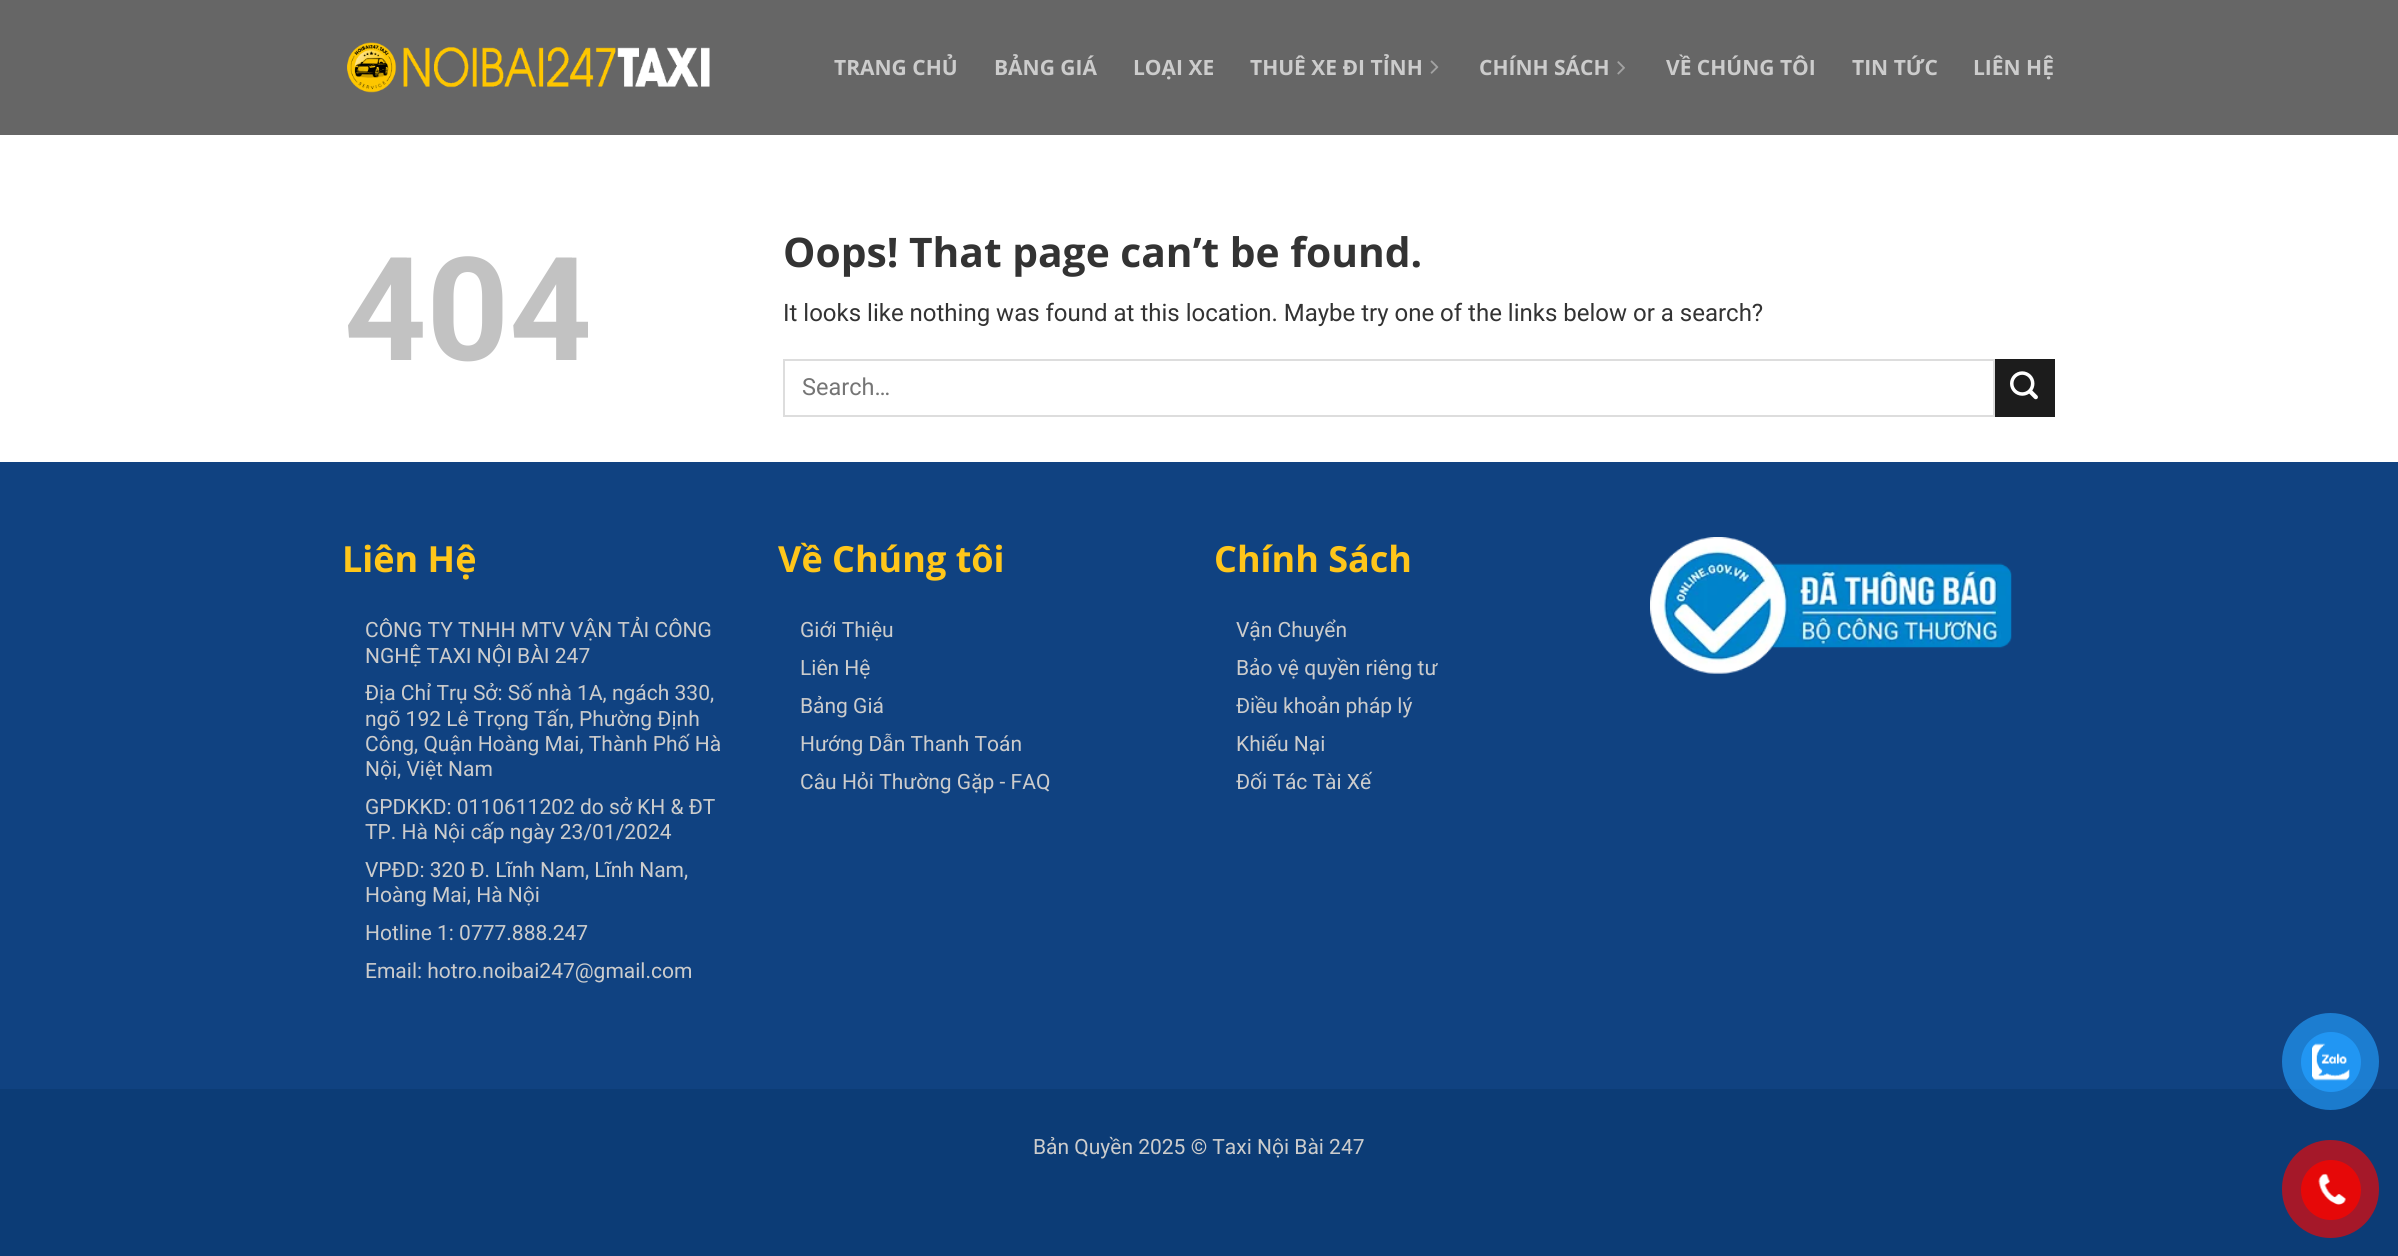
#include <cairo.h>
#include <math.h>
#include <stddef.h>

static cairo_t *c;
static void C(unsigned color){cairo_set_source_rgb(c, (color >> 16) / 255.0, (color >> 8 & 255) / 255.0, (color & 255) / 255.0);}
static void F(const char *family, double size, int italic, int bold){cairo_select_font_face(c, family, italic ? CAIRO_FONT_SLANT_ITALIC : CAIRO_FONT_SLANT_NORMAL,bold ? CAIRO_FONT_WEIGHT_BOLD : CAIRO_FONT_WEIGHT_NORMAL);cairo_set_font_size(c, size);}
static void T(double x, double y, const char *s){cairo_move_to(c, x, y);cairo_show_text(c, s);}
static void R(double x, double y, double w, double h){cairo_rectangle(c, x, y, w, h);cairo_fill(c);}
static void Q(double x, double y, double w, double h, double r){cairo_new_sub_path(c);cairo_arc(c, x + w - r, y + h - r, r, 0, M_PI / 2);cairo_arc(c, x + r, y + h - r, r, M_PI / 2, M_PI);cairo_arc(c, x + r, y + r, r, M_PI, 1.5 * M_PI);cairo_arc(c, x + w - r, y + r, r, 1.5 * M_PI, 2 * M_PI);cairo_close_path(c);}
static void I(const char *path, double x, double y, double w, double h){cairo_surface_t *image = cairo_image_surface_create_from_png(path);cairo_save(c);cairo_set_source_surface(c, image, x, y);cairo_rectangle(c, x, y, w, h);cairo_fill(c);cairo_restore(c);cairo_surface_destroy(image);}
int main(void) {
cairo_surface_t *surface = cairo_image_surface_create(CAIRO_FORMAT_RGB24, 2398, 1256);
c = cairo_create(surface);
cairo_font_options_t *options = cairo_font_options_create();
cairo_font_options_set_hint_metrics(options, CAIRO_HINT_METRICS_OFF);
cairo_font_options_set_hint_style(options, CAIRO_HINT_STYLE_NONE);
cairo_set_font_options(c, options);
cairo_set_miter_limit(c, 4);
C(0x0c3c76);
cairo_paint(c);
C(0xffffff);
R(0,135,2398,327);
C(0x666666);
R(0,0,2398,135);
I("1.png",347,42,363,51);
F("Open Sans",21,0,1);
C(0xcccccc);
T(834,75,"TRANG CHỦ");
T(994,75,"BẢNG GIÁ");
T(1133,75,"LOẠI XE");
T(1250,75,"THUÊ XE ĐI TỈNH");
I("2.png",1430,60,9,14);
T(1479,75,"CHÍNH SÁCH");
I("3.png",1617,61,8,14);
T(1666,75,"VỀ CHÚNG TÔI");
T(1852,75,"TIN TỨC");
T(1973,75,"LIÊN HỆ");
F("Roboto",144,0,1);
C(0xc2c2c2);
T(344,360,"404");
F("Open Sans",40.75,0,1);
C(0x333333);
T(783,267,"Oops! That page can’t be found.");
F("Roboto",24,0,0);
T(783,321,"It looks like nothing was found at this location. Maybe try one of the links below or a search?");
cairo_rectangle(c,784,360,1210,56);
C(0xdddddd);
cairo_stroke(c);
F("Roboto",23.5,0,0);
C(0x757575);
T(802,395,"Search…");
C(0x1c1c1c);
R(1995,359,60,58);
I("4.png",2010,371,28,29);
C(0x104281);
R(0,462,2398,627);
F("Open Sans",36,0,1);
C(0xffc61a);
T(342,572,"Liên Hệ");
F("Roboto",21,0,0);
C(0xcccccc);
T(365,637,"CÔNG TY TNHH MTV VẬN TẢI CÔNG");
T(365,663,"NGHỆ TAXI NỘI BÀI 247");
T(365,700,"Địa Chỉ Trụ Sở: Số nhà 1A, ngách 330,");
T(365,726,"ngõ 192 Lê Trọng Tấn, Phường Định");
T(365,751,"Công, Quận Hoàng Mai, Thành Phố Hà");
T(365,776,"Nội, Việt Nam");
T(365,814,"GPDKKD: 0110611202 do sở KH & ĐT");
T(365,839,"TP. Hà Nội cấp ngày 23/01/2024");
T(365,877,"VPĐD: 320 Đ. Lĩnh Nam, Lĩnh Nam,");
T(365,902,"Hoàng Mai, Hà Nội");
T(365,940,"Hotline 1: 0777.888.247");
T(365,978,"Email: hotro.noibai247@gmail.com");
F("Open Sans",36,0,1);
C(0xffc61a);
T(778,572,"Về Chúng tôi");
F("Roboto",21,0,0);
C(0xcccccc);
T(800,637,"Giới Thiệu");
T(800,675,"Liên Hệ");
T(800,713,"Bảng Giá");
T(800,751,"Hướng Dẫn Thanh Toán");
T(800,789,"Câu Hỏi Thường Gặp - FAQ");
F("Open Sans",36,0,1);
C(0xffc61a);
T(1214,572,"Chính Sách");
F("Roboto",21,0,0);
C(0xcccccc);
T(1236,637,"Vận Chuyển");
T(1236,675,"Bảo vệ quyền riêng tư");
T(1236,713,"Điều khoản pháp lý");
T(1236,751,"Khiếu Nại");
T(1236,789,"Đối Tác Tài Xế");
I("5.png",1650,537,362,137);
T(1033,1154,"Bản Quyền 2025 © Taxi Nội Bài 247");
cairo_set_source_rgba(c,0.129,0.588,0.953,0.7);
cairo_new_path(c);
cairo_arc(c,2330.5,1061.5,48.5,0,2 * M_PI);
cairo_fill(c);
C(0x2196f3);
cairo_arc(c,2331,1062,30,0,2 * M_PI);
cairo_fill(c);
I("6.png",2312,1043,38,38);
C(0xa51829);
Q(2282,1140,97,98,48.5);
cairo_fill(c);
C(0xe60808);
cairo_arc(c,2331,1190,30,0,2 * M_PI);
cairo_fill(c);
I("7.png",2318,1173,28,32);
cairo_surface_write_to_png(surface, "o.png");
cairo_font_options_destroy(options);
cairo_destroy(c);
cairo_surface_destroy(surface);
return 0;
}
